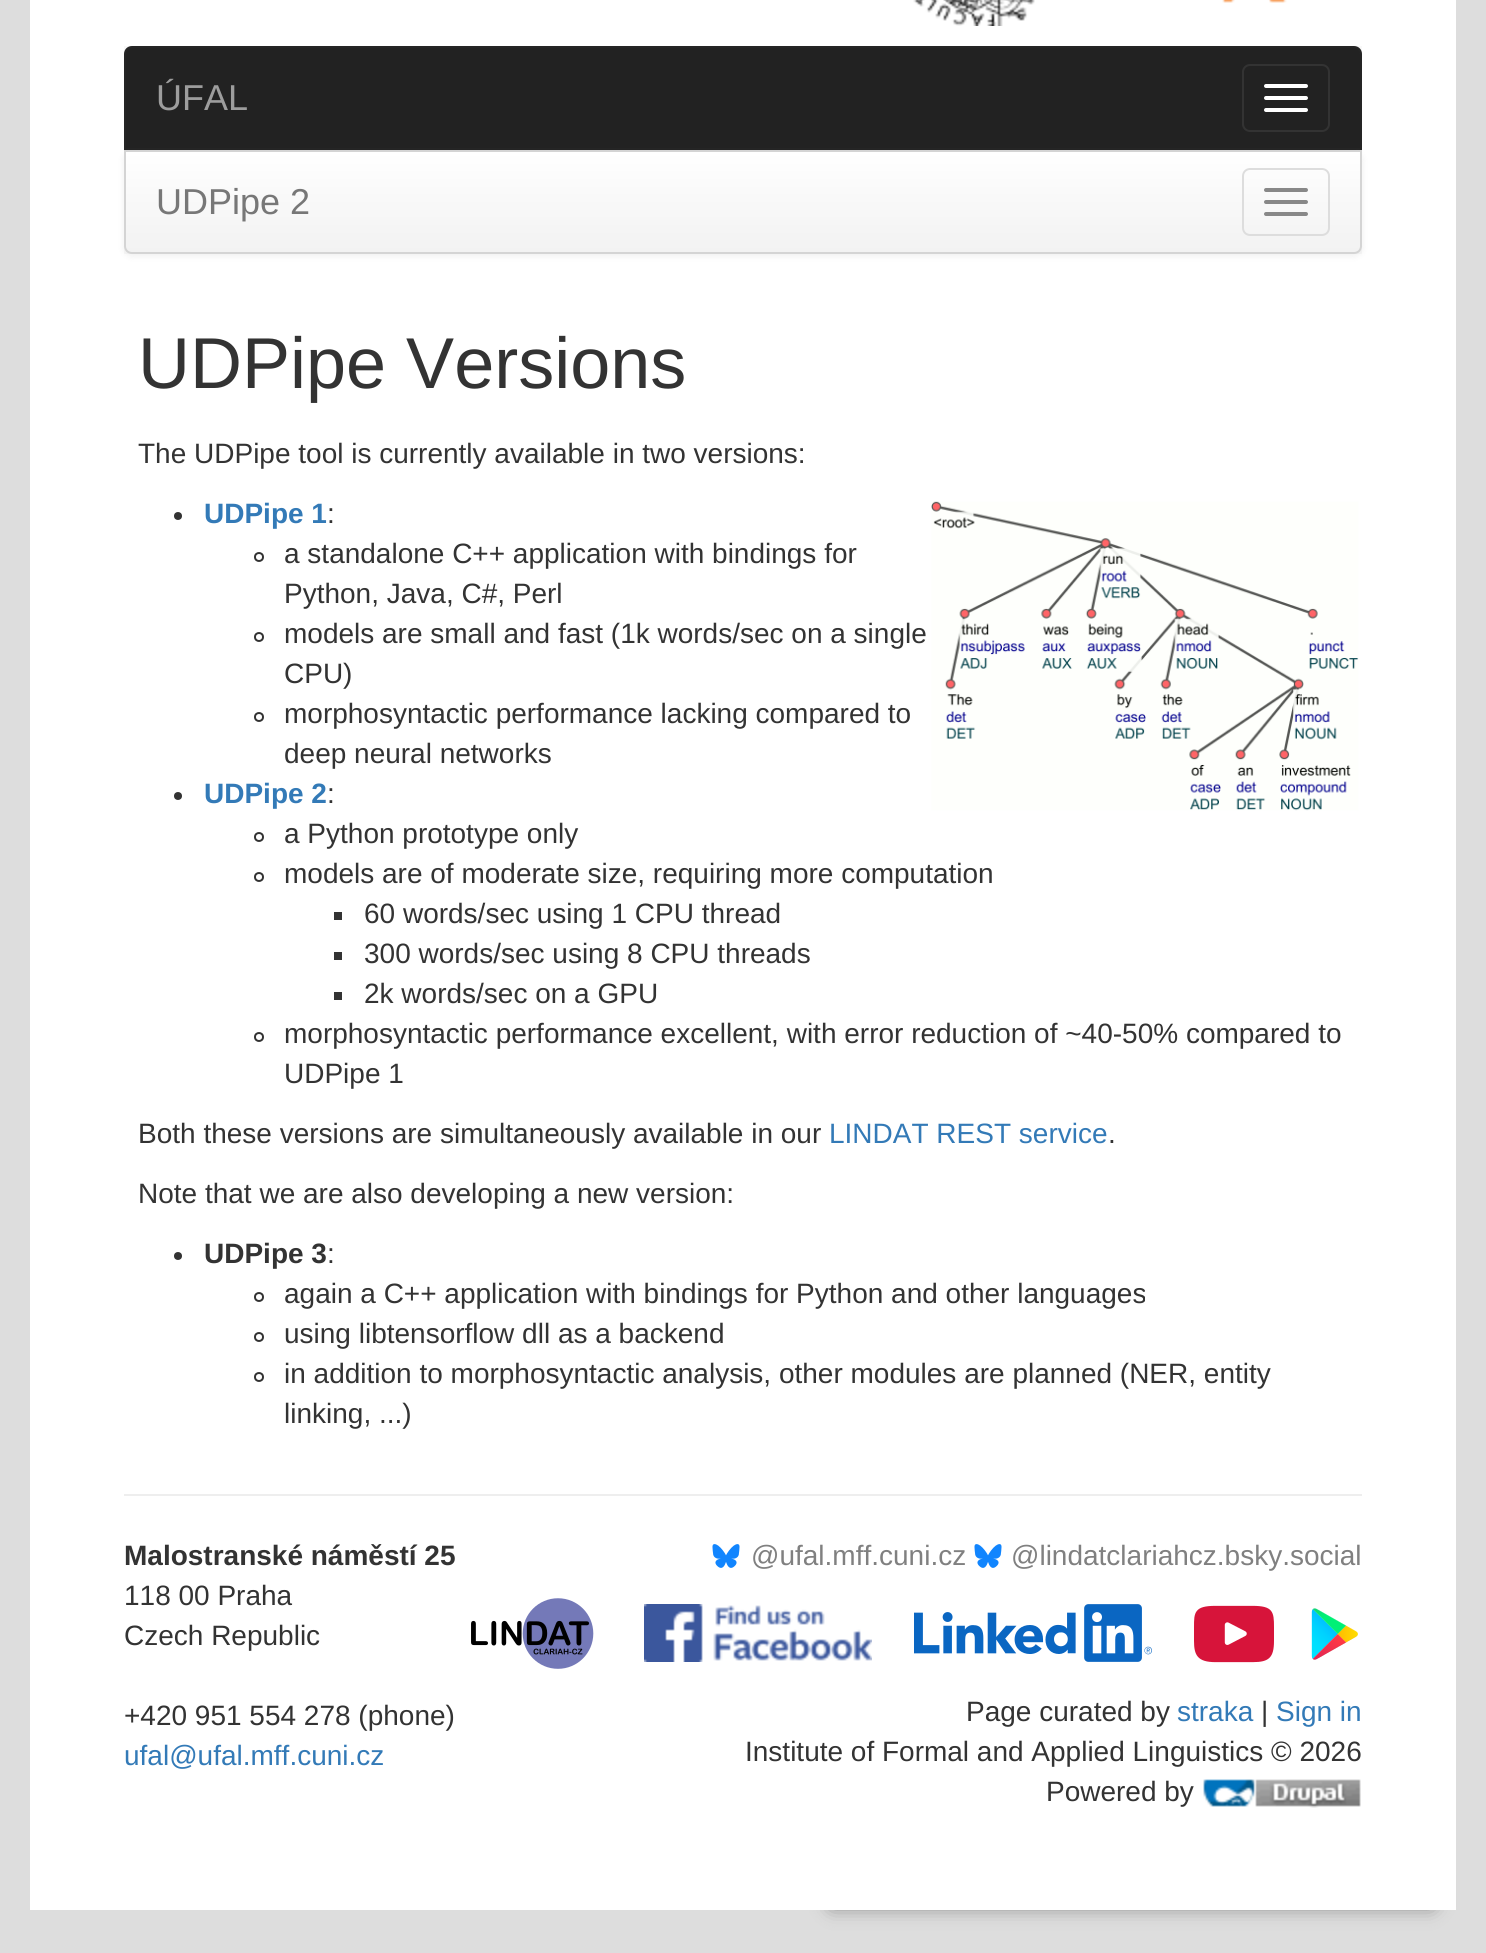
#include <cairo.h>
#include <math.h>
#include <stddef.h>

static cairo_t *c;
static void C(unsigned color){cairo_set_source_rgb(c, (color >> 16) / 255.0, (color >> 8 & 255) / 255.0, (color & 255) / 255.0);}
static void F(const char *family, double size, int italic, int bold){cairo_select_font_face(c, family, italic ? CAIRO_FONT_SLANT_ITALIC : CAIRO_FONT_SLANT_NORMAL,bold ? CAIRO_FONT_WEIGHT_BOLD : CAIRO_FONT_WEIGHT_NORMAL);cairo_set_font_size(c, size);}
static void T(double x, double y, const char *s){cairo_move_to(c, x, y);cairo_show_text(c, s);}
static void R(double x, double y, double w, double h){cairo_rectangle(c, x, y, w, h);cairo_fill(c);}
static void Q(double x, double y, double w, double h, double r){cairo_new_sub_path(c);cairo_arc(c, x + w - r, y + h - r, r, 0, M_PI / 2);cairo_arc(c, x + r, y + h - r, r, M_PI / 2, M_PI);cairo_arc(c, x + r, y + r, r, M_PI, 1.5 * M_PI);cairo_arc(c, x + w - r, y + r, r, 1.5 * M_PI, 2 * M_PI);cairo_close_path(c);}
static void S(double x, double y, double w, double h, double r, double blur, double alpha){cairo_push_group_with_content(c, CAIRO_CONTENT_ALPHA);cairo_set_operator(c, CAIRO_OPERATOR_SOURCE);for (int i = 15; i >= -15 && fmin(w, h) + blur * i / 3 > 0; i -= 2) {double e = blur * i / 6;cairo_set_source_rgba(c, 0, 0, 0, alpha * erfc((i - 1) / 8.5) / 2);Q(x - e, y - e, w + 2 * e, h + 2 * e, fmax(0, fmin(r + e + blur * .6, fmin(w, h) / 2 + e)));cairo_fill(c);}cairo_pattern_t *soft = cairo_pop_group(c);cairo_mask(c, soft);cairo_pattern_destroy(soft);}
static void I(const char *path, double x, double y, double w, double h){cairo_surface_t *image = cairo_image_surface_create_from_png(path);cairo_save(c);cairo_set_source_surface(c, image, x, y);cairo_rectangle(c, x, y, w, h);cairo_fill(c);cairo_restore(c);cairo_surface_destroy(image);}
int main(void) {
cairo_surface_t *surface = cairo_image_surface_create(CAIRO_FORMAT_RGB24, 1486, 1953);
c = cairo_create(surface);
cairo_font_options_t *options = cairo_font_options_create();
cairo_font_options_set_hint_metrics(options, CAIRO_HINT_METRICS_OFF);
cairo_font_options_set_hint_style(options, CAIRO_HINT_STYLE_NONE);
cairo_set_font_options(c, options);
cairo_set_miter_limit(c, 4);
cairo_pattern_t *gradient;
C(0xdddddd);
cairo_paint(c);
C(0x777777);
S(832,1876,600,30,0,10,1);
C(0xffffff);
R(30,0,1426,1910);
I("1.png",913,0,122,26);
I("2.png",1222,0,65,3);
C(0xf8f8f8);
R(124,46,1238,208);
C(0x222222);
cairo_new_path(c);
cairo_move_to(c,132,47);
cairo_line_to(c,1354,47);
cairo_curve_to(c,1358,47,1361,50,1361,54);
cairo_line_to(c,1361,149);
cairo_line_to(c,125,149);
cairo_line_to(c,125,54);
cairo_curve_to(c,125,50,128,47,132,47);
cairo_close_path(c);
cairo_fill_preserve(c);
C(0x252525);
cairo_stroke(c);
F("Liberation Sans",36,0,0);
C(0x9d9d9d);
T(156,110,"ÚFAL");
Q(1243,65,86,66,7);
C(0x333333);
cairo_stroke(c);
C(0xffffff);
Q(1264,84,44,4,2);
cairo_fill(c);
Q(1264,96,44,4,2);
cairo_fill(c);
Q(1264,108,44,4,2);
cairo_fill(c);
C(0x000000);
S(124,152,1238,104,8,4,.07);
cairo_save(c);
cairo_new_path(c);
cairo_move_to(c,124,150);
cairo_line_to(c,1362,150);
cairo_line_to(c,1362,246);
cairo_curve_to(c,1362,250.5,1358.5,254,1354,254);
cairo_line_to(c,132,254);
cairo_curve_to(c,127.5,254,124,250.5,124,246);
cairo_close_path(c);
cairo_clip(c);
gradient = cairo_pattern_create_linear(743,152,743,252);
cairo_pattern_add_color_stop_rgba(gradient,0,1,1,1,1);
cairo_pattern_add_color_stop_rgba(gradient,1,0.949,0.949,0.949,1);
cairo_set_source(c,gradient);
cairo_pattern_destroy(gradient);
R(124,152,1238,100);
cairo_restore(c);
cairo_new_path(c);
cairo_move_to(c,125,151);
cairo_line_to(c,1361,151);
cairo_line_to(c,1361,246);
cairo_curve_to(c,1361,250,1358,253,1354,253);
cairo_line_to(c,132,253);
cairo_curve_to(c,128,253,125,250,125,246);
cairo_close_path(c);
C(0xd4d4d4);
cairo_stroke(c);
C(0x777777);
T(156,214,"UDPipe 2");
Q(1243,169,86,66,7);
C(0xdddddd);
cairo_stroke(c);
C(0x888888);
Q(1264,188,44,4,2);
cairo_fill(c);
Q(1264,200,44,4,2);
cairo_fill(c);
Q(1264,212,44,4,2);
cairo_fill(c);
F("Liberation Sans",72,0,0);
C(0x333333);
T(138,388,"UDPipe Versions");
F("Liberation Sans",28,0,0);
T(138,463,"The UDPipe tool is currently available in two versions:");
I("3.png",931,501,428,310);
cairo_arc(c,178,516,4,0,2 * M_PI);
cairo_fill(c);
F("Liberation Sans",28,0,1);
C(0x337ab7);
T(204,523,"UDPipe 1");
F("Liberation Sans",28,0,0);
C(0x333333);
T(327,523,":");
cairo_new_path(c);
cairo_arc(c,259,557,4,0,2 * M_PI);
cairo_stroke(c);
T(284,563,"a standalone C++ application with bindings for");
T(284,603,"Python, Java, C#, Perl");
cairo_new_path(c);
cairo_arc(c,259,637,4,0,2 * M_PI);
cairo_stroke(c);
T(284,643,"models are small and fast (1k words/sec on a single");
T(284,683,"CPU)");
cairo_new_path(c);
cairo_arc(c,259,717,4,0,2 * M_PI);
cairo_stroke(c);
T(284,723,"morphosyntactic performance lacking compared to");
T(284,763,"deep neural networks");
cairo_new_path(c);
cairo_arc(c,178,796,4,0,2 * M_PI);
cairo_fill(c);
F("Liberation Sans",28,0,1);
C(0x337ab7);
T(204,803,"UDPipe 2");
F("Liberation Sans",28,0,0);
C(0x333333);
T(327,803,":");
cairo_new_path(c);
cairo_arc(c,259,837,4,0,2 * M_PI);
cairo_stroke(c);
T(284,843,"a Python prototype only");
cairo_new_path(c);
cairo_arc(c,259,877,4,0,2 * M_PI);
cairo_stroke(c);
T(284,883,"models are of moderate size, requiring more computation");
R(334,912,8,8);
T(364,923,"60 words/sec using 1 CPU thread");
R(334,952,8,8);
T(364,963,"300 words/sec using 8 CPU threads");
R(334,992,8,8);
T(364,1003,"2k words/sec on a GPU");
cairo_new_path(c);
cairo_arc(c,259,1037,4,0,2 * M_PI);
cairo_stroke(c);
T(284,1043,"morphosyntactic performance excellent, with error reduction of ~40-50% compared to");
T(284,1083,"UDPipe 1");
T(138,1143,"Both these versions are simultaneously available in our");
C(0x337ab7);
T(829,1143,"LINDAT REST service");
C(0x333333);
T(1108,1143,".");
T(138,1203,"Note that we are also developing a new version:");
cairo_new_path(c);
cairo_arc(c,178,1256,4,0,2 * M_PI);
cairo_fill(c);
F("Liberation Sans",28,0,1);
T(204,1263,"UDPipe 3");
F("Liberation Sans",28,0,0);
T(327,1263,":");
cairo_new_path(c);
cairo_arc(c,259,1297,4,0,2 * M_PI);
cairo_stroke(c);
T(284,1303,"again a C++ application with bindings for Python and other languages");
cairo_new_path(c);
cairo_arc(c,259,1337,4,0,2 * M_PI);
cairo_stroke(c);
T(284,1343,"using libtensorflow dll as a backend");
cairo_new_path(c);
cairo_arc(c,259,1377,4,0,2 * M_PI);
cairo_stroke(c);
T(284,1383,"in addition to morphosyntactic analysis, other modules are planned (NER, entity");
T(284,1423,"linking, ...)");
C(0xeeeeee);
R(124,1494,1238,2);
F("Liberation Sans",28,0,1);
C(0x333333);
T(124,1565,"Malostranské náměstí 25");
F("Liberation Sans",28,0,0);
T(124,1605,"118 00 Praha");
T(124,1645,"Czech Republic");
T(124,1725,"+420 951 554 278 (phone)");
C(0x337ab7);
T(124,1765,"ufal@ufal.mff.cuni.cz");
I("4.png",712,1544,28,24);
C(0x808080);
T(751,1565,"@ufal.mff.cuni.cz");
I("4.png",974,1544,28,24);
T(1011,1565,"@lindatclariahcz.bsky.social");
I("5.png",471,1598,123,71);
I("6.png",644,1604,228,58);
I("7.png",914,1604,238,58);
I("8.png",1194,1605,80,58);
I("9.png",1311,1608,47,52);
C(0x333333);
T(966,1721,"Page curated by");
C(0x337ab7);
T(1177,1721,"straka");
C(0x333333);
T(1261,1721,"|");
C(0x337ab7);
T(1276,1721,"Sign in");
C(0x333333);
T(745,1761,"Institute of Formal and Applied Linguistics © 2026");
T(1046,1801,"Powered by");
I("10.png",1203,1779,158,29);
cairo_surface_write_to_png(surface, "o.png");
cairo_font_options_destroy(options);
cairo_destroy(c);
cairo_surface_destroy(surface);
return 0;
}
